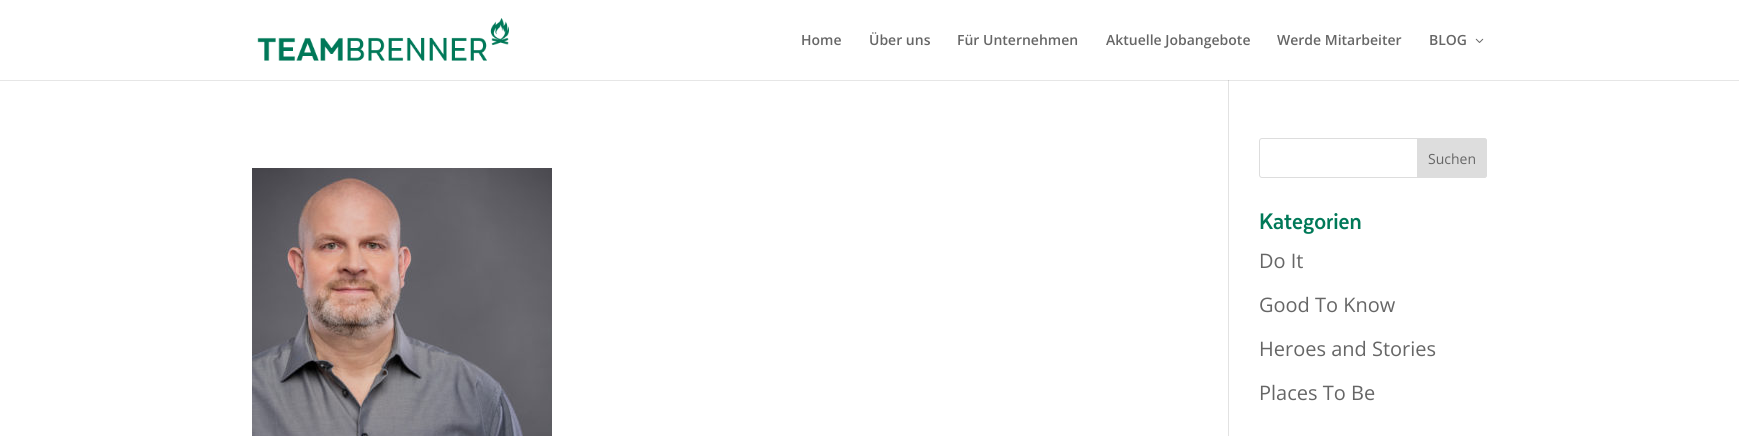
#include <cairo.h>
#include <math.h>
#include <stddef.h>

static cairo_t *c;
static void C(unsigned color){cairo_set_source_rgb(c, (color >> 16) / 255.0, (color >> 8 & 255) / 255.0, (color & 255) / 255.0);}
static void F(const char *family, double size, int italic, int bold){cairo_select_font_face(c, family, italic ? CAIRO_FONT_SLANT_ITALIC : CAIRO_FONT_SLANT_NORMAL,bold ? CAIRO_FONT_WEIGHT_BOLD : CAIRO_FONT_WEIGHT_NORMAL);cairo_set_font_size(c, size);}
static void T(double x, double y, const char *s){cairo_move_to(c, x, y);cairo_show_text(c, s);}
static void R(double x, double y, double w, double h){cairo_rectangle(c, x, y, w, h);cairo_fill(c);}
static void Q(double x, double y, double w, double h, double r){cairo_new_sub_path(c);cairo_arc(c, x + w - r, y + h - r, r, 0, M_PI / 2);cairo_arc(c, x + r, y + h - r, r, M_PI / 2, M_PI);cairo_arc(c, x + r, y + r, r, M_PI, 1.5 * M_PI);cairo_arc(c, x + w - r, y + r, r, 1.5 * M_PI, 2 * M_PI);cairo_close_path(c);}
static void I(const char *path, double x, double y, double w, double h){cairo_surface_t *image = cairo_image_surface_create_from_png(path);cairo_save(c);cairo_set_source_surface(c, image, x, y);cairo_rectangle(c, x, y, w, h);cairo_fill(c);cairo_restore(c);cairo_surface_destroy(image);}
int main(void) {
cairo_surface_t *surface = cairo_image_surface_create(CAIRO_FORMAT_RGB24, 1739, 436);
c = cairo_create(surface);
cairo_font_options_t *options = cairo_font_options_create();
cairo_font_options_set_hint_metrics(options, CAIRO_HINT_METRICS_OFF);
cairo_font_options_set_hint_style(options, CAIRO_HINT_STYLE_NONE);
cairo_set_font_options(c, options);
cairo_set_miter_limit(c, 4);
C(0xffffff);
cairo_paint(c);
C(0xe6e6e6);
R(0,80,1739,1);
I("1.png",257,18,252,43);
F("Open Sans SemiBold",14,0,0);
C(0x666666);
T(801,45,"Home");
T(869,45,"Über uns");
T(957,45,"Für Unternehmen");
T(1106,45,"Aktuelle Jobangebote");
T(1277,45,"Werde Mitarbeiter");
T(1429,45,"BLOG");
I("2.png",1475,38,9,5);
C(0xe2e2e2);
R(1228,80,1,356);
C(0xcbcbcb);
R(1228,80,1,1);
I("3.png",252,168,300,268);
Q(1259.5,138.5,227,39,2.5);
C(0xdddddd);
cairo_set_line_width(c,1);
cairo_stroke(c);
cairo_new_path(c);
cairo_move_to(c,1417.5,138.5);
cairo_line_to(c,1484,138.5);
cairo_curve_to(c,1485.5,138.5,1486.5,139.5,1486.5,141);
cairo_line_to(c,1486.5,175);
cairo_curve_to(c,1486.5,176.5,1485.5,177.5,1484,177.5);
cairo_line_to(c,1417.5,177.5);
cairo_close_path(c);
cairo_fill_preserve(c);
cairo_stroke(c);
F("Open Sans",14,0,0);
C(0x666666);
T(1428,164,"Suchen");
F("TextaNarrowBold",26,0,1);
C(0x007958);
T(1259,229,"Kategorien");
F("Open Sans",20,0,0);
C(0x666666);
T(1259,268,"Do It");
T(1259,312,"Good To Know");
T(1259,356,"Heroes and Stories");
T(1259,400,"Places To Be");
cairo_surface_write_to_png(surface, "o.png");
cairo_font_options_destroy(options);
cairo_destroy(c);
cairo_surface_destroy(surface);
return 0;
}
